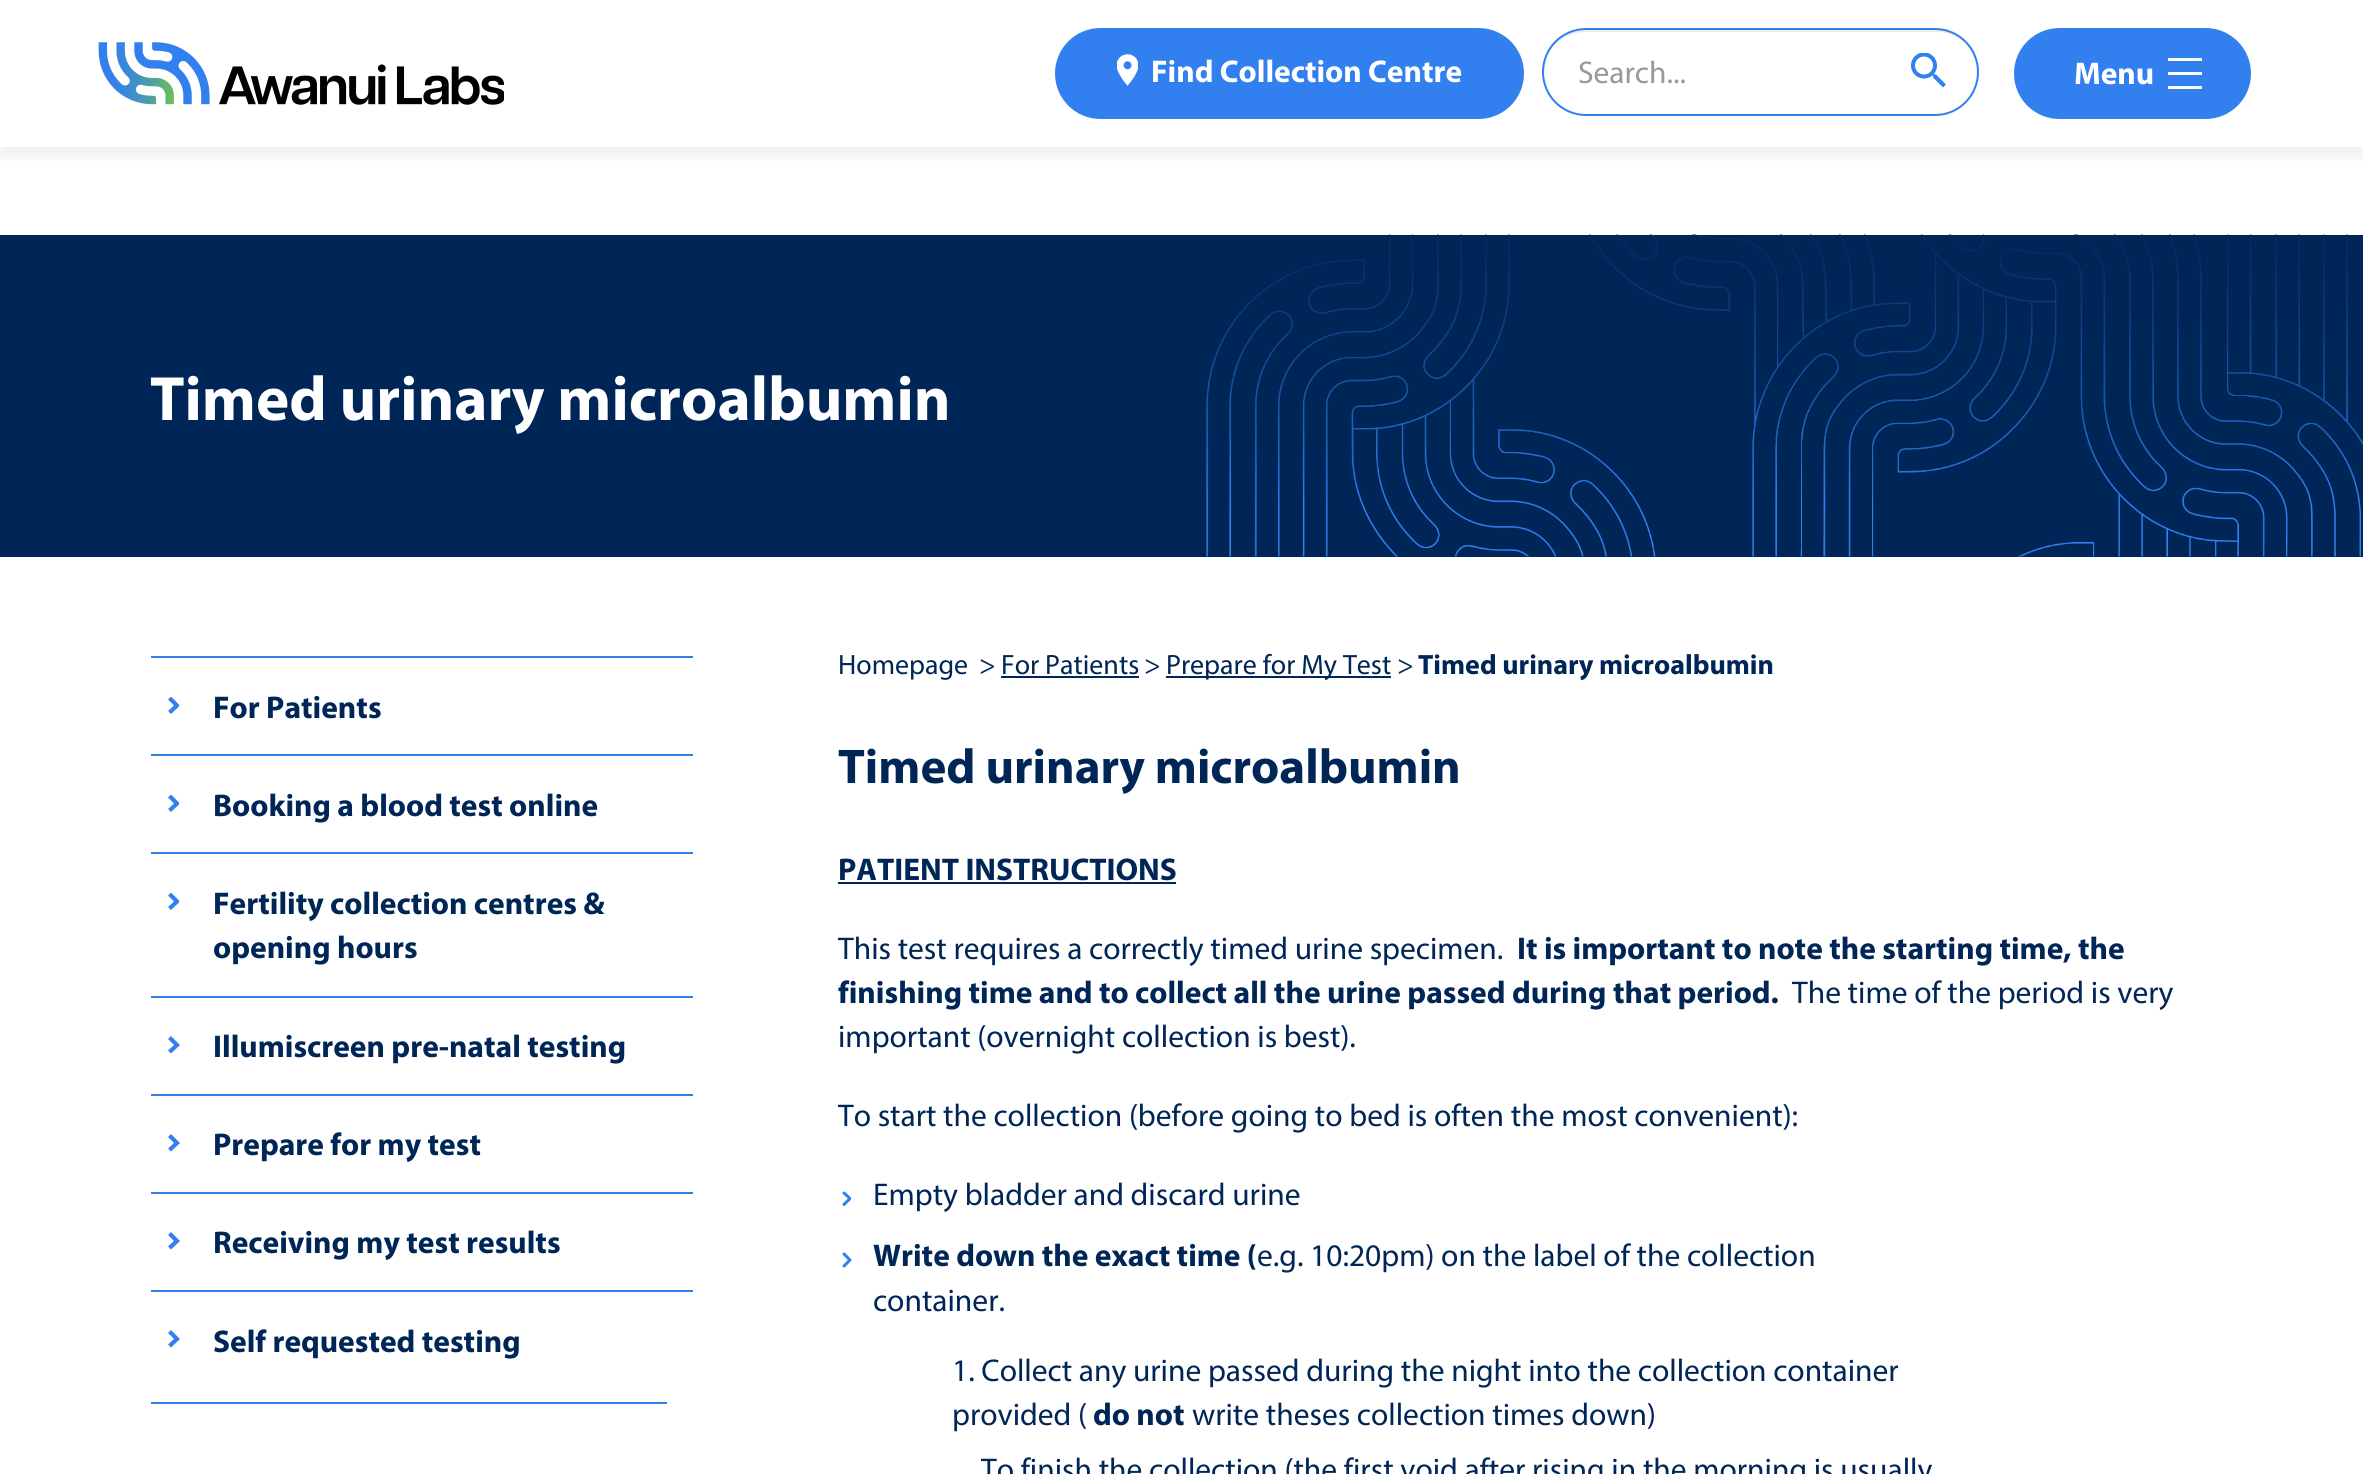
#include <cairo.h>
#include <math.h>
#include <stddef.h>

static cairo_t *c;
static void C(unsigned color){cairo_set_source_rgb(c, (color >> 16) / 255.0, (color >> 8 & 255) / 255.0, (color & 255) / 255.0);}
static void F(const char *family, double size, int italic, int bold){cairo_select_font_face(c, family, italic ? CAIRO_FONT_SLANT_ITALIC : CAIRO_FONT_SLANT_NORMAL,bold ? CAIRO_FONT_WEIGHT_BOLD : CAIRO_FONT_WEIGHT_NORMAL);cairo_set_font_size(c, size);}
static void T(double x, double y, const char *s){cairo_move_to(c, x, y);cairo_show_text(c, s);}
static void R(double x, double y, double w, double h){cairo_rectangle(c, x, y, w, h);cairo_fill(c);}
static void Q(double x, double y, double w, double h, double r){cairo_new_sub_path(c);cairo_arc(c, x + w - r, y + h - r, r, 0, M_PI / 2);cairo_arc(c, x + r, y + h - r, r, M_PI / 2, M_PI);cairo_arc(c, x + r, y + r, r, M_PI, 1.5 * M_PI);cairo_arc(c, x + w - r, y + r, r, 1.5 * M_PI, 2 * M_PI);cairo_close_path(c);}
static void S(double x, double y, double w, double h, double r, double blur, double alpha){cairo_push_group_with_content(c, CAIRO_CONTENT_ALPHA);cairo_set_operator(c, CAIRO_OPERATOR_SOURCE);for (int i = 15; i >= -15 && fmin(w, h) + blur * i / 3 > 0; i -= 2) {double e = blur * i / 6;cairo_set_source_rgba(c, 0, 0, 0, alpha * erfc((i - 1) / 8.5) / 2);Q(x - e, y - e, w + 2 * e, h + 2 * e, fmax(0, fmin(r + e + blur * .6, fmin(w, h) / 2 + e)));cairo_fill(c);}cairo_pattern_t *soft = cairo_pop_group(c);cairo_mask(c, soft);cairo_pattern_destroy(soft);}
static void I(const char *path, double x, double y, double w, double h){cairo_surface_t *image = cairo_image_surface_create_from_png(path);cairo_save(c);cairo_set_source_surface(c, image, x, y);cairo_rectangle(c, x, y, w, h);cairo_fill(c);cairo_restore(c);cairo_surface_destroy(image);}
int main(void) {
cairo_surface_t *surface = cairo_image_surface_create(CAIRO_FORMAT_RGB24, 2363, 1474);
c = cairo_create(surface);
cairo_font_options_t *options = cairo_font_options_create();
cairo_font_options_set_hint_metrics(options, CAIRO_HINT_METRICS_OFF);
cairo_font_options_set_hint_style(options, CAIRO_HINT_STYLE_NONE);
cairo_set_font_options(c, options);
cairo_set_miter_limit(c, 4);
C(0xffffff);
cairo_paint(c);
cairo_save(c);
cairo_rectangle(c,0,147,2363,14);
cairo_clip(c);
C(0x000000);
S(0,9,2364,147,0,9,.07);
cairo_restore(c);
I("1.png",98,42,406,63);
C(0x327fef);
Q(1055,28,469,91,45.5);
cairo_fill(c);
I("2.png",1117,54,21,32);
F("Myriad",31.5,0,1);
C(0xffffff);
T(1151,82,"Find Collection Centre");
C(0xececec);
cairo_new_path(c);
cairo_move_to(c,1586,32);
cairo_line_to(c,1936,32);
cairo_curve_to(c,1959,32,1977,49,1978,73);
cairo_line_to(c,1978,72);
cairo_curve_to(c,1978,49,1959,30,1936,30);
cairo_line_to(c,1586,30);
cairo_curve_to(c,1563,30,1544,49,1544,72);
cairo_line_to(c,1544,73);
cairo_curve_to(c,1545,49,1562,32,1586,32);
cairo_close_path(c);
cairo_fill(c);
Q(1543,29,435,86,43);
C(0x327fef);
cairo_stroke(c);
F("Myriad",31.5,0,0);
C(0x999999);
T(1578,83,"Search...");
I("3.png",1911,53,35,35);
C(0x327fef);
Q(2014,28,237,91,45.5);
cairo_fill(c);
F("Myriad",31.5,0,1);
C(0xffffff);
T(2074,84,"Menu");
R(2168,58,34,3);
R(2168,72,34,3);
R(2168,86,34,3);
C(0x002657);
R(0,235,2363,322);
I("4.png",1206,234,1157,323);
F("Myriad",63,0,1);
C(0xffffff);
T(150,420,"Timed urinary microalbumin");
C(0x327fef);
R(151,1402,516,2);
R(151,656,542,2);
cairo_save(c);
cairo_rectangle(c,168,697,11,17);
cairo_clip(c);
cairo_new_path(c);
cairo_move_to(c,169.5,698);
cairo_line_to(c,177,705.5);
cairo_line_to(c,169.5,712.5);
cairo_set_line_width(c,4.2);
cairo_stroke(c);
cairo_restore(c);
F("Myriad",31.5,0,1);
C(0x002657);
T(213,718,"For Patients");
C(0x327fef);
R(151,754,542,2);
cairo_save(c);
cairo_rectangle(c,168,795,11,17);
cairo_clip(c);
cairo_new_path(c);
cairo_move_to(c,169.5,796);
cairo_line_to(c,177,803.5);
cairo_line_to(c,169.5,810.5);
cairo_set_line_width(c,4.2);
cairo_stroke(c);
cairo_restore(c);
C(0x002657);
T(213,816,"Booking a blood test online");
C(0x327fef);
R(151,852,542,2);
cairo_save(c);
cairo_rectangle(c,168,893,11,17);
cairo_clip(c);
cairo_new_path(c);
cairo_move_to(c,169.5,894);
cairo_line_to(c,177,901.5);
cairo_line_to(c,169.5,908.5);
cairo_set_line_width(c,4.2);
cairo_stroke(c);
cairo_restore(c);
C(0x002657);
T(213,914,"Fertility collection centres &");
T(213,958,"opening hours");
C(0x327fef);
R(151,996,542,2);
cairo_new_path(c);
cairo_move_to(c,169.5,1037.5);
cairo_line_to(c,177,1045);
cairo_line_to(c,169.5,1052);
cairo_set_line_width(c,4.2);
cairo_stroke(c);
C(0x002657);
T(213,1057,"Illumiscreen pre-natal testing");
C(0x327fef);
R(151,1094,542,2);
cairo_new_path(c);
cairo_move_to(c,169.5,1135.5);
cairo_line_to(c,177,1143);
cairo_line_to(c,169.5,1150);
cairo_stroke(c);
C(0x002657);
T(213,1155,"Prepare for my test");
C(0x327fef);
R(151,1192,542,2);
cairo_new_path(c);
cairo_move_to(c,169.5,1233.5);
cairo_line_to(c,177,1241);
cairo_line_to(c,169.5,1248);
cairo_stroke(c);
C(0x002657);
T(213,1253,"Receiving my test results");
C(0x327fef);
R(151,1290,542,2);
cairo_new_path(c);
cairo_move_to(c,169.5,1331.5);
cairo_line_to(c,177,1339);
cairo_line_to(c,169.5,1346);
cairo_stroke(c);
C(0x002657);
T(213,1352,"Self requested testing");
F("Myriad",28,0,0);
T(838,674,"Homepage");
T(979,674,">");
T(1001,674,"For Patients");
R(1001,676,138,2);
T(1144,674,">");
R(1166,676,225,2);
T(1166,674,"Prepare for My Test");
T(1397,674,">");
F("Myriad",28,0,1);
T(1418,674,"Timed urinary microalbumin");
F("Myriad",49,0,1);
T(838,783,"Timed urinary microalbumin");
F("Myriad",31.5,0,1);
T(838,880,"PATIENT INSTRUCTIONS");
R(838,882,338,2);
F("Myriad",31.5,0,0);
T(838,959,"This test requires a correctly timed urine specimen.");
F("Myriad",31.5,0,1);
T(1517,959,"It is important to note the starting time, the");
T(838,1003,"finishing time and to collect all the urine passed during");
T(1613,1003,"that period.");
F("Myriad",31.5,0,0);
T(1792,1003,"The time of the period is very");
T(838,1047,"important (overnight collection is best).");
T(838,1126,"To start the collection (before going to bed is often the most convenient):");
cairo_save(c);
cairo_rectangle(c,842,1190,9,18);
cairo_clip(c);
cairo_new_path(c);
cairo_move_to(c,844,1204.5);
cairo_line_to(c,850,1198.5);
cairo_line_to(c,844,1193);
C(0x327fef);
cairo_set_line_width(c,3);
cairo_set_line_cap(c,CAIRO_LINE_CAP_ROUND);
cairo_set_line_join(c,CAIRO_LINE_JOIN_ROUND);
cairo_stroke(c);
cairo_restore(c);
T(873,1205,"Empty bladder and discard urine");
cairo_new_path(c);
cairo_move_to(c,844,1266);
cairo_line_to(c,850,1260);
cairo_line_to(c,844,1254);
C(0x327fef);
cairo_set_line_width(c,3);
cairo_set_line_cap(c,CAIRO_LINE_CAP_ROUND);
cairo_set_line_join(c,CAIRO_LINE_JOIN_ROUND);
cairo_stroke(c);
F("Myriad",31.5,0,1);
C(0x002657);
T(873,1266,"Write down the exact time (");
F("Myriad",31.5,0,0);
T(1257,1266,"e.g. 10:20pm) on the label of the collection");
T(873,1311,"container.");
T(952,1381,"1. Collect any urine passed during the night into the collection container");
T(952,1425,"provided (");
F("Myriad",31.5,0,1);
T(1093,1425,"do not");
F("Myriad",31.5,0,0);
T(1192,1425,"write theses collection times down)");
T(981,1480,"To finish the collection (the first void after rising in the morning is usually");
cairo_surface_write_to_png(surface, "o.png");
cairo_font_options_destroy(options);
cairo_destroy(c);
cairo_surface_destroy(surface);
return 0;
}
